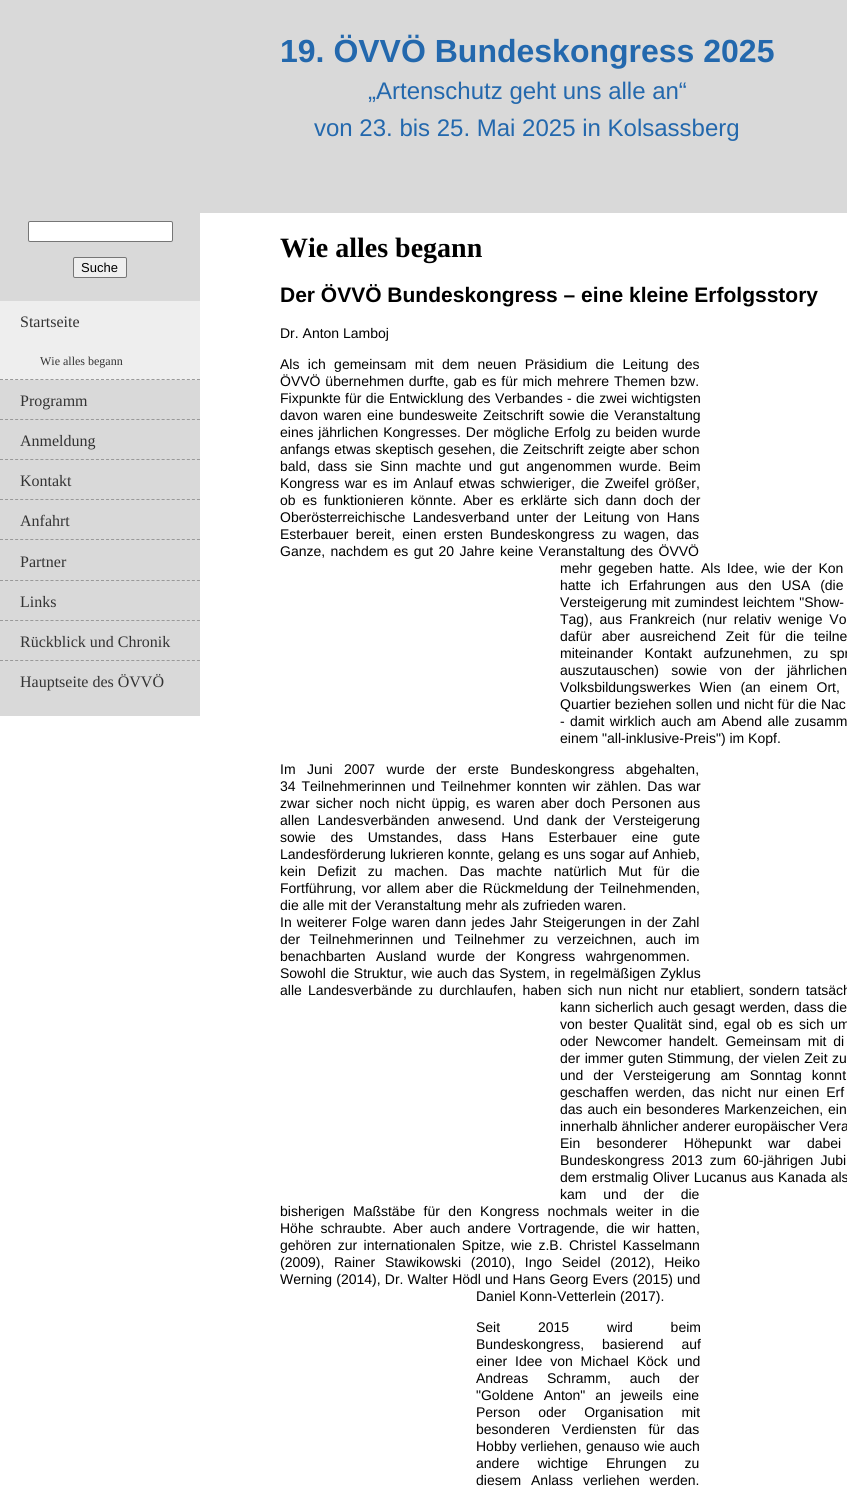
#include <cairo.h>
#include <math.h>
#include <stddef.h>

static cairo_t *c;
static void C(unsigned color){cairo_set_source_rgb(c, (color >> 16) / 255.0, (color >> 8 & 255) / 255.0, (color & 255) / 255.0);}
static void F(const char *family, double size, int italic, int bold){cairo_select_font_face(c, family, italic ? CAIRO_FONT_SLANT_ITALIC : CAIRO_FONT_SLANT_NORMAL,bold ? CAIRO_FONT_WEIGHT_BOLD : CAIRO_FONT_WEIGHT_NORMAL);cairo_set_font_size(c, size);}
static void T(double x, double y, const char *s){cairo_move_to(c, x, y);cairo_show_text(c, s);}
static void L(double x, double y, const char *s, double letter, double word){cairo_move_to(c, x, y);while (*s) {char ch[5] = {0};int n = 0;do ch[n++] = *s++; while ((*s & 0xC0) == 0x80);cairo_show_text(c, ch);cairo_rel_move_to(c, letter + word * (*ch == ' '), 0);}}
static void R(double x, double y, double w, double h){cairo_rectangle(c, x, y, w, h);cairo_fill(c);}
static void Q(double x, double y, double w, double h, double r){cairo_new_sub_path(c);cairo_arc(c, x + w - r, y + h - r, r, 0, M_PI / 2);cairo_arc(c, x + r, y + h - r, r, M_PI / 2, M_PI);cairo_arc(c, x + r, y + r, r, M_PI, 1.5 * M_PI);cairo_arc(c, x + w - r, y + r, r, 1.5 * M_PI, 2 * M_PI);cairo_close_path(c);}
int main(void) {
cairo_surface_t *surface = cairo_image_surface_create(CAIRO_FORMAT_RGB24, 847, 1494);
c = cairo_create(surface);
cairo_font_options_t *options = cairo_font_options_create();
cairo_font_options_set_hint_metrics(options, CAIRO_HINT_METRICS_OFF);
cairo_font_options_set_hint_style(options, CAIRO_HINT_STYLE_NONE);
cairo_set_font_options(c, options);
cairo_set_miter_limit(c, 4);
C(0xffffff);
cairo_paint(c);
C(0xd9d9d9);
R(0,0,847,213);
F("Liberation Sans",32,0,1);
C(0x2368ad);
T(280,62,"19. ÖVVÖ Bundeskongress 2025");
F("Liberation Sans",24,0,0);
T(368,99,"„Artenschutz geht uns alle an“");
T(314,136,"von 23. bis 25. Mai 2025 in Kolsassberg");
C(0xd9d9d9);
R(0,213,200,503);
C(0xffffff);
Q(28.5,221.5,144,20,1.5);
cairo_fill_preserve(c);
C(0x767676);
cairo_set_line_width(c,1);
cairo_stroke(c);
C(0xefefef);
Q(73.5,257.5,53,20,1.5);
cairo_fill_preserve(c);
C(0x767676);
cairo_stroke(c);
F("Liberation Sans",13,0,0);
C(0x000000);
T(81,272,"Suche");
C(0xeeeeee);
R(0,301,200,79);
cairo_new_path(c);
cairo_move_to(c,0,379.5);
cairo_line_to(c,200,379.5);
C(0x999999);
cairo_set_dash(c,(double[]){3,2.05},2,0);
cairo_stroke(c);
F("Liberation Serif",16,0,0);
C(0x333333);
T(20,327,"Startseite");
F("Liberation Serif",12,0,0);
T(40,365,"Wie alles begann");
cairo_new_path(c);
cairo_move_to(c,0,419.5);
cairo_line_to(c,200,419.5);
C(0x999999);
cairo_stroke(c);
F("Liberation Serif",16,0,0);
C(0x333333);
T(20,406,"Programm");
cairo_new_path(c);
cairo_move_to(c,0,459.5);
cairo_line_to(c,200,459.5);
C(0x999999);
cairo_stroke(c);
C(0x333333);
T(20,446,"Anmeldung");
cairo_new_path(c);
cairo_move_to(c,0,499.5);
cairo_line_to(c,200,499.5);
C(0x999999);
cairo_stroke(c);
C(0x333333);
T(20,486,"Kontakt");
cairo_new_path(c);
cairo_move_to(c,0,539.5);
cairo_line_to(c,200,539.5);
C(0x999999);
cairo_stroke(c);
C(0x333333);
T(20,526,"Anfahrt");
cairo_new_path(c);
cairo_move_to(c,0,580.5);
cairo_line_to(c,200,580.5);
C(0x999999);
cairo_stroke(c);
C(0x333333);
T(20,567,"Partner");
cairo_new_path(c);
cairo_move_to(c,0,620.5);
cairo_line_to(c,200,620.5);
C(0x999999);
cairo_stroke(c);
C(0x333333);
T(20,607,"Links");
cairo_new_path(c);
cairo_move_to(c,0,660.5);
cairo_line_to(c,200,660.5);
C(0x999999);
cairo_stroke(c);
C(0x333333);
T(20,647,"Rückblick und Chronik");
T(20,687,"Hauptseite des ÖVVÖ");
F("Liberation Serif",28,0,1);
C(0x000000);
T(280,257,"Wie alles begann");
F("Liberation Sans",21,0,1);
T(280,302,"Der ÖVVÖ Bundeskongress – eine kleine Erfolgsstory");
F("Liberation Sans",14,0,0);
T(280,338,"Dr. Anton Lamboj");
L(280,369,"Als ich gemeinsam mit dem neuen Präsidium die Leitung des",0,4.5);
L(280,386,"ÖVVÖ übernehmen durfte, gab es für mich mehrere Themen bzw.",0,1);
L(280,403,"Fixpunkte für die Entwicklung des Verbandes - die zwei wichtigsten",0,.5);
L(280,420,"davon waren eine bundesweite Zeitschrift sowie die Veranstaltung",0,1.5);
L(280,437,"eines jährlichen Kongresses. Der mögliche Erfolg zu beiden wurde",0,1);
L(280,454,"anfangs etwas skeptisch gesehen, die Zeitschrift zeigte aber schon",0,.5);
L(280,471,"bald, dass sie Sinn machte und gut angenommen wurde. Beim",0,3.5);
L(280,488,"Kongress war es im Anlauf etwas schwieriger, die Zweifel größer,",0,1.6);
L(280,505,"ob es funktionieren könnte. Aber es erklärte sich dann doch der",0,2.75);
L(280,522,"Oberösterreichische Landesverband unter der Leitung von Hans",0,3.5);
L(280,539,"Esterbauer bereit, einen ersten Bundeskongress zu wagen, das",0,3.5);
L(280,556,"Ganze, nachdem es gut 20 Jahre keine Veranstaltung des ÖVVÖ",0,1.5);
L(560,573,"mehr gegeben hatte.",0,2.5);
L(701,573,"Als Idee, wie der Kon",0,2.5);
L(560,590,"hatte ich Erfahrungen aus den USA (die",0,6);
L(560,607,"Versteigerung mit zumindest leichtem \"Show-",0,.5);
L(560,624,"Tag), aus Frankreich (nur relativ wenige Vo",0,3);
L(560,641,"dafür aber ausreichend Zeit für die teilne",0,6);
L(560,658,"miteinander Kontakt aufzunehmen, zu spr",0,7.5);
L(560,675,"auszutauschen) sowie von der jährlichen",0,8.5);
L(560,692,"Volksbildungswerkes Wien (an einem Ort,",0,5);
L(560,709,"Quartier beziehen sollen und nicht für die Nac",0,.25);
L(560,726,"- damit wirklich auch am Abend alle zusamm",0,1.5);
T(560,743,"einem \"all-inklusive-Preis\") im Kopf.");
L(280,774,"Im Juni 2007 wurde der erste Bundeskongress abgehalten,",0,7.5);
L(280,791,"34 Teilnehmerinnen und Teilnehmer konnten wir zählen. Das war",0,2);
L(280,808,"zwar sicher noch nicht üppig, es waren aber doch Personen aus",0,2.25);
L(280,825,"allen Landesverbänden anwesend. Und dank der Versteigerung",0,4);
L(280,842,"sowie des Umstandes, dass Hans Esterbauer eine gute",0,10.75);
L(280,859,"Landesförderung lukrieren konnte, gelang es uns sogar auf Anhieb,",0,.25);
L(280,876,"kein Defizit zu machen. Das machte natürlich Mut für die",0,7.75);
L(280,893,"Fortführung, vor allem aber die Rückmeldung der Teilnehmenden,",0,1.5);
T(280,910,"die alle mit der Veranstaltung mehr als zufrieden waren.");
L(280,927,"In weiterer Folge waren dann jedes Jahr Steigerungen in der Zahl",0,1.25);
L(280,944,"der Teilnehmerinnen und Teilnehmer zu verzeichnen, auch im",0,5);
L(280,961,"benachbarten Ausland wurde der Kongress wahrgenommen.",0,6.5);
L(280,978,"Sowohl die Struktur, wie auch das System, in regelmäßigen Zyklus",0,.75);
L(280,995,"alle Landesverbände zu durchlaufen, haben sich nun nicht nur etabliert,",0,2.25);
L(749,995,"sondern tatsäch",0,2.25);
L(560,1012,"kann sicherlich auch gesagt werden, dass die",0,.75);
L(560,1029,"von bester Qualität sind, egal ob es sich um",0,2.25);
L(560,1046,"oder Newcomer handelt. Gemeinsam mit di",0,3);
L(560,1063,"der immer guten Stimmung, der vielen Zeit zu",0,.5);
L(560,1080,"und der Versteigerung am Sonntag konnt",0,6);
L(560,1097,"geschaffen werden, das nicht nur einen Erf",0,3);
L(560,1114,"das auch ein besonderes Markenzeichen, ein",0,1);
T(560,1131,"innerhalb ähnlicher anderer europäischer Vera");
L(560,1148,"Ein besonderer Höhepunkt war dabei",0,12.5);
L(560,1165,"Bundeskongress 2013 zum 60-jährigen Jubi",0,3.25);
L(560,1182,"dem erstmalig Oliver Lucanus aus Kanada als",0,.5);
L(560,1199,"kam und der die",0,13);
L(280,1216,"bisherigen Maßstäbe für den Kongress nochmals weiter in die",0,4.5);
L(280,1233,"Höhe schraubte. Aber auch andere Vortragende, die wir hatten,",0,3.25);
L(280,1250,"gehören zur internationalen Spitze, wie z.B. Christel Kasselmann",0,2.5);
L(280,1267,"(2009), Rainer Stawikowski (2010), Ingo Seidel (2012), Heiko",0,5.75);
L(280,1284,"Werning (2014), Dr. Walter Hödl und Hans Georg Evers (2015) und",0,.25);
T(476,1301,"Daniel Konn-Vetterlein (2017).");
L(476,1332,"Seit 2015 wird beim",0,34);
L(476,1349,"Bundeskongress, basierend auf",0,14);
L(476,1366,"einer Idee von Michael Köck",0,4);
T(677,1366,"und");
L(476,1383,"Andreas Schramm, auch der",0,15);
L(476,1400,"\"Goldene Anton\" an jeweils eine",0,6);
L(476,1417,"Person oder Organisation mit",0,14);
L(476,1434,"besonderen Verdiensten für das",0,8);
L(476,1451,"Hobby verliehen, genauso wie auch",0,.5);
L(476,1468,"andere wichtige Ehrungen zu",0,14);
L(476,1485,"diesem Anlass verliehen werden.",0,6);
cairo_surface_write_to_png(surface, "o.png");
cairo_font_options_destroy(options);
cairo_destroy(c);
cairo_surface_destroy(surface);
return 0;
}
